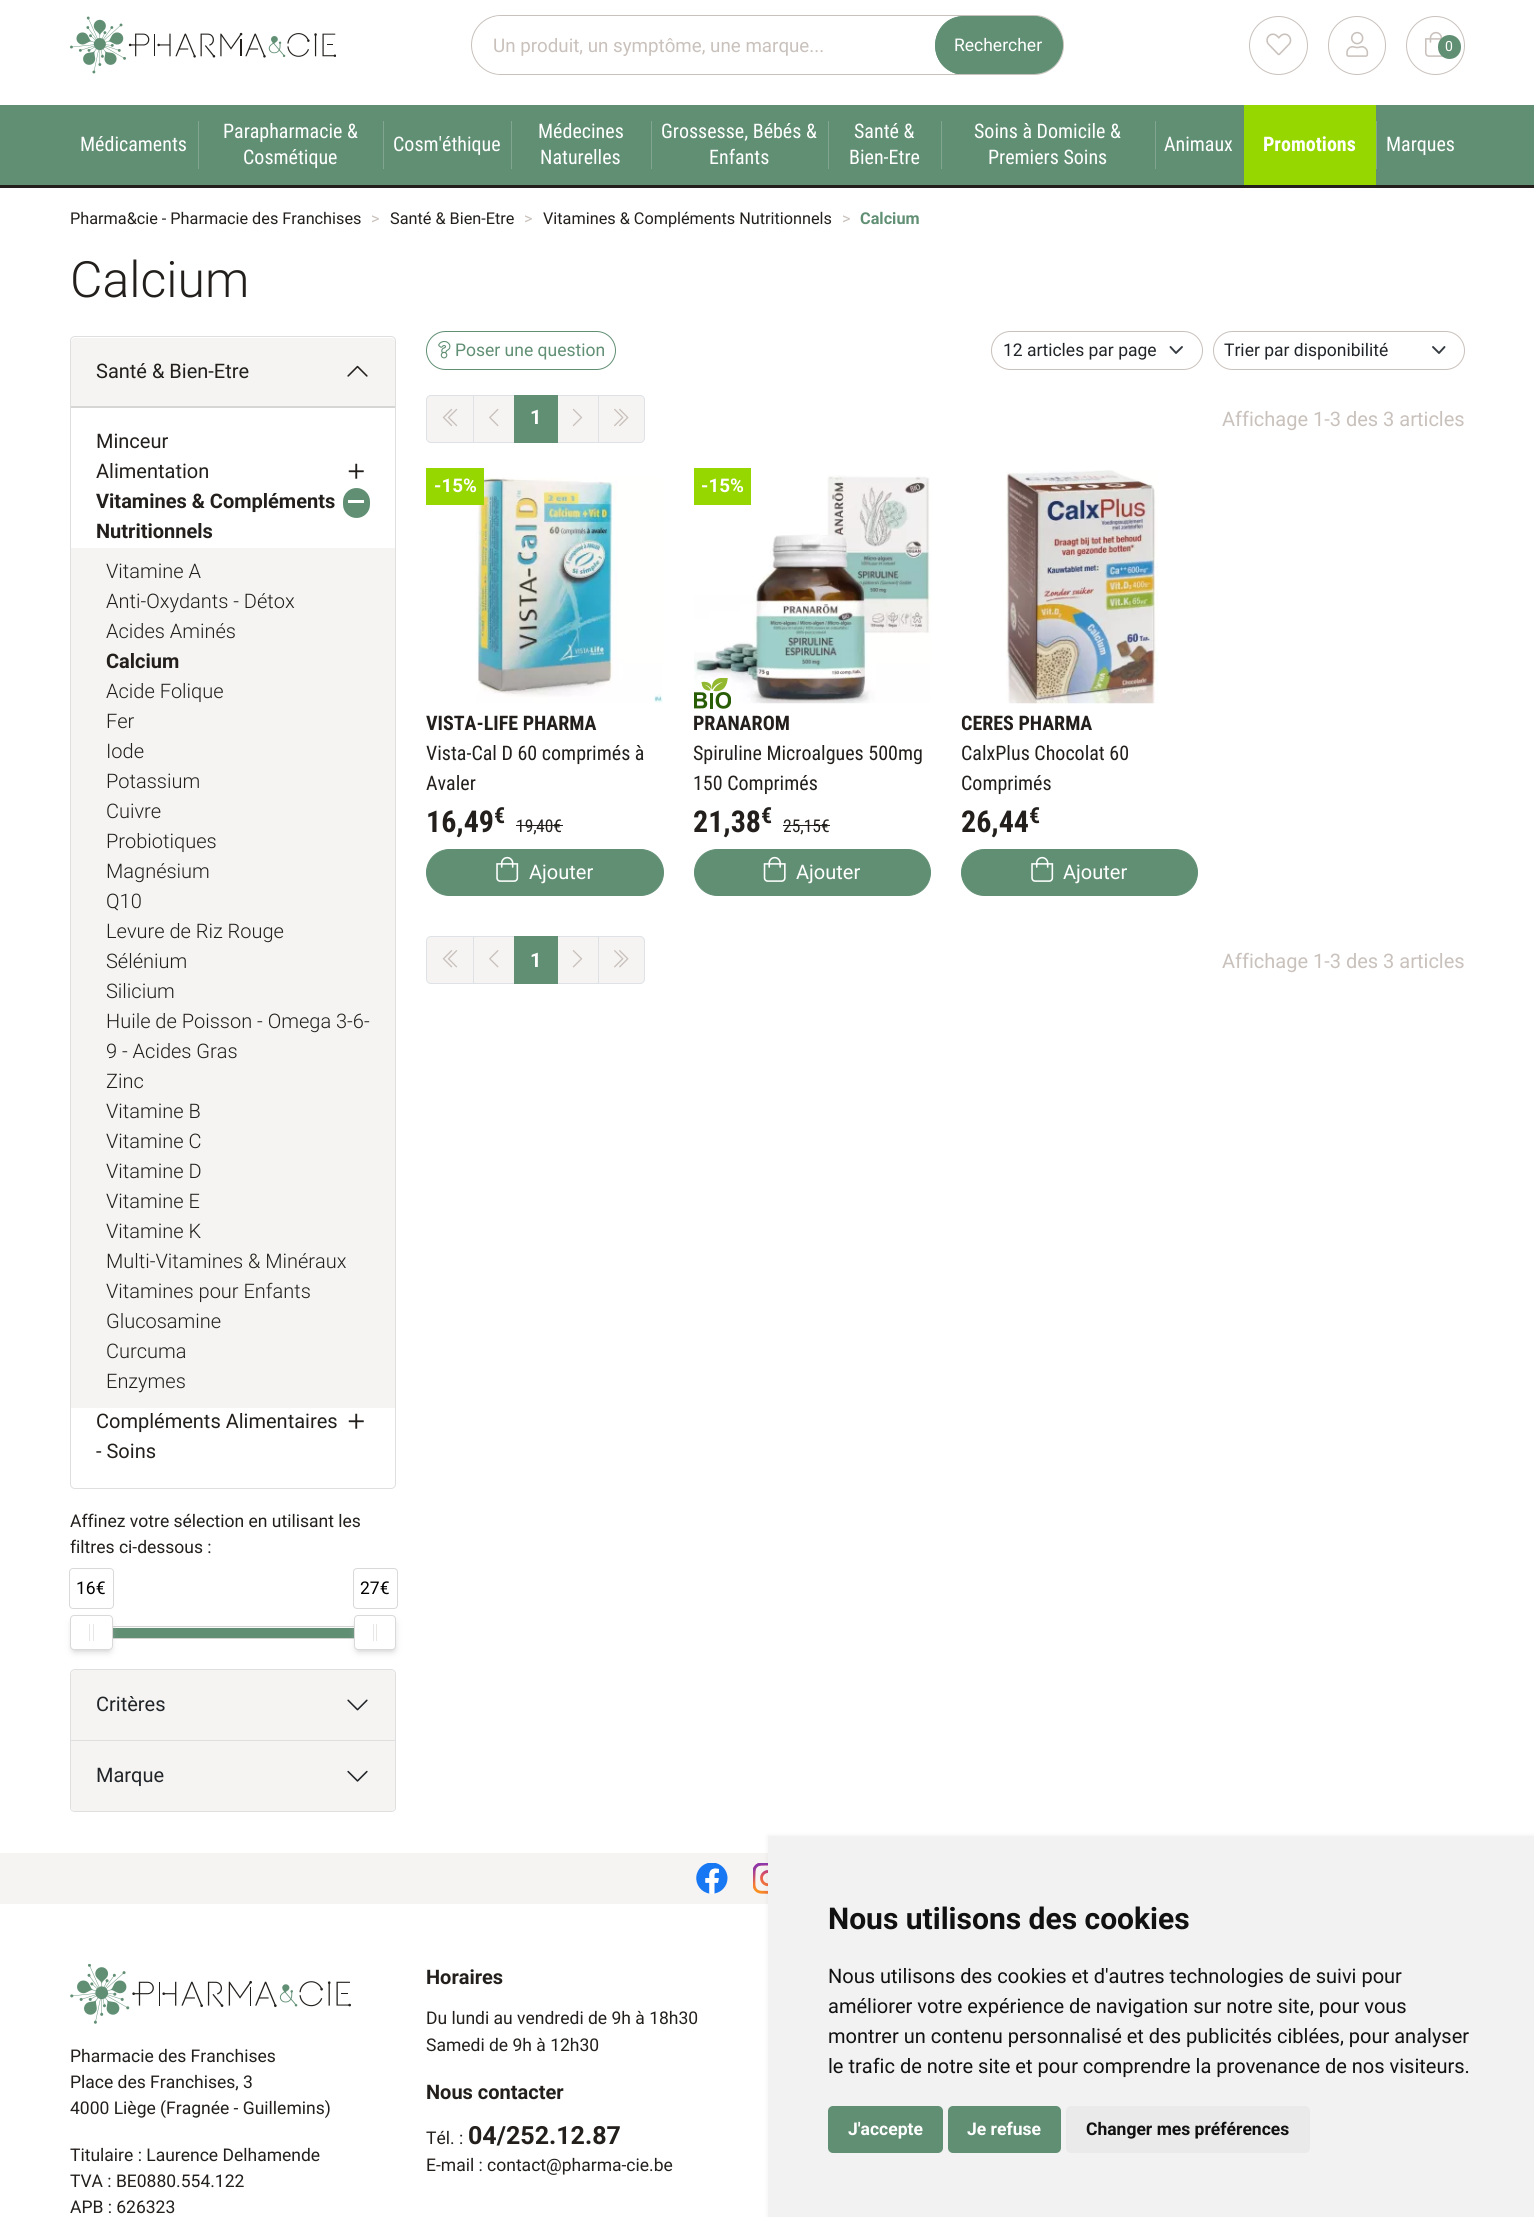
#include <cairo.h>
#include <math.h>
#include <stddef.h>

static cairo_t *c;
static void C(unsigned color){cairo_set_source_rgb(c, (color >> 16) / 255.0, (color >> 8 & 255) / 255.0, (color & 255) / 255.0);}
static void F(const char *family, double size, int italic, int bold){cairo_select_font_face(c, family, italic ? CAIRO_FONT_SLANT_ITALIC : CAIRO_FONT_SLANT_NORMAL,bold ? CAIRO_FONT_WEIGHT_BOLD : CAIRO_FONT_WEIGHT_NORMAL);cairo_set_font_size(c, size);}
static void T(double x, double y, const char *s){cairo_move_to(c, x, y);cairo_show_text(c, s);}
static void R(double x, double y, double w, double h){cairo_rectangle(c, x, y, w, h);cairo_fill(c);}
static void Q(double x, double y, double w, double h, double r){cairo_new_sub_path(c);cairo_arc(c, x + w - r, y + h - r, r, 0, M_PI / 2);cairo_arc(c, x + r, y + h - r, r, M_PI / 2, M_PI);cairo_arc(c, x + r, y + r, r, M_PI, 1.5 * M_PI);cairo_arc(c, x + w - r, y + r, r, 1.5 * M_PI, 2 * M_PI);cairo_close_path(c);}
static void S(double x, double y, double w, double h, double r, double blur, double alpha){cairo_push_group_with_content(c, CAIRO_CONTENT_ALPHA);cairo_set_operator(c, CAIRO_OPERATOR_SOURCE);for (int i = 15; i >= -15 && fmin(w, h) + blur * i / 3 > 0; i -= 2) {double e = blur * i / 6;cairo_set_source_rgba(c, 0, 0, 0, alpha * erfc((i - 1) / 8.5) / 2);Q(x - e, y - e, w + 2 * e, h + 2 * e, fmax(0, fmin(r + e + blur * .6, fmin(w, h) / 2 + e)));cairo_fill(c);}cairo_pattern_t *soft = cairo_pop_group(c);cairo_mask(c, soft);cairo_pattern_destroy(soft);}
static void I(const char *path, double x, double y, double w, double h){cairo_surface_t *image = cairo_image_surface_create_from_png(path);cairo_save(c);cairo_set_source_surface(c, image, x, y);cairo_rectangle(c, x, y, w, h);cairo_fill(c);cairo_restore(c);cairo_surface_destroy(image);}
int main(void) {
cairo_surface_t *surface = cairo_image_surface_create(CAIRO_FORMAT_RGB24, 1534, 2217);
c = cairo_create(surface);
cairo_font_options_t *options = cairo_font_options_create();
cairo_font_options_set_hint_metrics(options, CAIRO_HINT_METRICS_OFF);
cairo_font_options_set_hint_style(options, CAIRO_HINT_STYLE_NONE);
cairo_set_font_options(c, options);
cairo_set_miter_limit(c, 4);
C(0xffffff);
cairo_paint(c);
C(0x221f1c);
R(0,185,1534,3);
I("1.png",70,16,266,58);
Q(471.5,15.5,592,59,29.5);
C(0xc9c1bc);
cairo_set_line_width(c,1);
cairo_stroke(c);
cairo_save(c);
Q(473,16,590,58,29);
cairo_clip(c);
C(0xffffff);
cairo_new_path(c);
cairo_move_to(c,479,16);
cairo_line_to(c,936,16);
cairo_line_to(c,936,75);
cairo_line_to(c,479,75);
cairo_curve_to(c,475.5,75,473,72.5,473,69);
cairo_line_to(c,473,22);
cairo_curve_to(c,473,18.5,475.5,16,479,16);
cairo_close_path(c);
cairo_fill(c);
cairo_restore(c);
F("Roboto",18.75,0,0);
T(493,52,"Un produit, un symptôme, une marque...");
cairo_save(c);
Q(473,16,590,58,29);
cairo_clip(c);
C(0x618f74);
Q(935,16,128,59,29.5);
cairo_fill(c);
cairo_restore(c);
C(0x618f74);
cairo_new_path(c);
cairo_move_to(c,964,16);
cairo_curve_to(c,930,16,924,65,957,74);
cairo_line_to(c,964,74);
cairo_curve_to(c,928,74,926,18,964,17);
cairo_line_to(c,1010,17);
cairo_curve_to(c,1021,17,1035,15,1045,19);
cairo_curve_to(c,1073,31,1064,74,1034,74);
cairo_curve_to(c,1062,74,1074,37,1050,21);
cairo_curve_to(c,1045,18,1039,16,1034,16);
cairo_close_path(c);
cairo_fill(c);
F("Roboto",17.5,0,0);
C(0xffffff);
T(954,51,"Rechercher");
cairo_new_path(c);
cairo_arc(c,1278.5,45.5,29,0,2 * M_PI);
C(0xc9c1bc);
cairo_stroke(c);
I("2.png",1266,33,26,23);
Q(1328.5,16.5,57,58,28.5);
cairo_stroke(c);
I("3.png",1346,31,23,26);
cairo_arc(c,1435.5,45.5,29,0,2 * M_PI);
cairo_stroke(c);
I("4.png",1425,31,18,26);
C(0x618f74);
Q(1438,35,23,24,11.5);
cairo_fill(c);
F("Roboto",14,0,0);
C(0xffffff);
T(1445,51,"0");
C(0x618f74);
R(0,105,1534,80);
F("Roboto Condensed",20,0,0);
C(0xffffff);
T(80,151,"Médicaments");
C(0x81a590);
R(198,121,1,48);
C(0xffffff);
T(223,138,"Parapharmacie &");
T(243,164,"Cosmétique");
C(0x81a590);
R(383,121,1,48);
C(0xffffff);
T(393,151,"Cosm'éthique");
C(0x81a590);
R(511,121,1,48);
C(0xffffff);
T(538,138,"Médecines");
T(540,164,"Naturelles");
C(0x81a590);
R(651,121,1,48);
C(0xffffff);
T(661,138,"Grossesse, Bébés &");
T(709,164,"Enfants");
C(0x81a590);
R(828,121,1,48);
C(0xffffff);
T(854,138,"Santé &");
T(849,164,"Bien-Etre");
C(0x81a590);
R(941,121,1,48);
C(0xffffff);
T(974,138,"Soins à Domicile &");
T(988,164,"Premiers Soins");
C(0x81a590);
R(1155,121,1,48);
C(0xffffff);
T(1164,151,"Animaux");
C(0x97d700);
R(1244,105,132,80);
F("Roboto Condensed",20,0,1);
C(0xffffff);
T(1263,151,"Promotions");
C(0x81a590);
R(1376,121,1,48);
F("Roboto Condensed",20,0,0);
C(0xffffff);
T(1386,151,"Marques");
F("Roboto",16.25,0,0);
C(0x221f1c);
T(70,224,"Pharma&cie - Pharmacie des Franchises");
C(0xc9c1bc);
T(371,224,">");
C(0x221f1c);
T(390,224,"Santé & Bien-Etre");
C(0xc9c1bc);
T(524,224,">");
C(0x221f1c);
T(543,224,"Vitamines & Compléments Nutritionnels");
C(0xc9c1bc);
T(842,224,">");
F("Roboto",16.25,0,1);
C(0x618f74);
T(860,224,"Calcium");
F("Roboto Light",50,0,0);
C(0x221f1c);
T(70,297,"Calcium");
Q(70.5,336.5,325,1152,4.5);
C(0xdfdfdf);
cairo_stroke(c);
C(0xf5f4f2);
cairo_new_path(c);
cairo_move_to(c,75,338);
cairo_line_to(c,391,338);
cairo_curve_to(c,393,338,395,340,395,342);
cairo_line_to(c,395,408);
cairo_line_to(c,71,408);
cairo_line_to(c,71,342);
cairo_curve_to(c,71,340,73,338,75,338);
cairo_close_path(c);
cairo_fill(c);
C(0xd6d6d4);
R(71,406,324,2);
F("Roboto",20,0,0);
C(0x221f1c);
T(96,378,"Santé & Bien-Etre");
I("5.png",347,365,21,12);
T(96,448,"Minceur");
T(96,478,"Alimentation");
I("6.png",348,463,16,16);
F("Roboto",20,0,1);
T(96,508,"Vitamines & Compléments");
T(96,538,"Nutritionnels");
C(0x618f74);
Q(343,488,27,30,13.5);
cairo_fill(c);
C(0xffffff);
R(348,500,16,3);
C(0xf5f4f2);
R(71,548,324,860);
F("Roboto Light",20,0,0);
C(0x221f1c);
T(106,578,"Vitamine A");
T(106,608,"Anti-Oxydants - Détox");
T(106,638,"Acides Aminés");
F("Roboto",20,0,1);
T(106,668,"Calcium");
F("Roboto Light",20,0,0);
T(106,698,"Acide Folique");
T(106,728,"Fer");
T(106,758,"Iode");
T(106,788,"Potassium");
T(106,818,"Cuivre");
T(106,848,"Probiotiques");
T(106,878,"Magnésium");
T(106,908,"Q10");
T(106,938,"Levure de Riz Rouge");
T(106,968,"Sélénium");
T(106,998,"Silicium");
T(106,1028,"Huile de Poisson - Omega 3-6-");
T(106,1058,"9 - Acides Gras");
T(106,1088,"Zinc");
T(106,1118,"Vitamine B");
T(106,1148,"Vitamine C");
T(106,1178,"Vitamine D");
T(106,1208,"Vitamine E");
T(106,1238,"Vitamine K");
T(106,1268,"Multi-Vitamines & Minéraux");
T(106,1298,"Vitamines pour Enfants");
T(106,1328,"Glucosamine");
T(106,1358,"Curcuma");
T(106,1388,"Enzymes");
F("Roboto",20,0,0);
T(96,1428,"Compléments Alimentaires");
T(96,1458,"- Soins");
I("6.png",348,1413,16,16);
F("Roboto",17.5,0,0);
T(70,1527,"Affinez votre sélection en utilisant les");
T(70,1553,"filtres ci-dessous :");
C(0xfafafa);
R(113,1627,241,1);
cairo_rectangle(c,90.5,1626.5,285,12);
C(0xd3d3d3);
cairo_stroke(c);
C(0x618f74);
R(113,1628,241,10);
C(0xbbbbbb);
S(74,1623,35,27,0,4,1);
C(0xffffff);
Q(70.5,1615.5,42,34,3.5);
cairo_fill_preserve(c);
C(0xd9d9d9);
cairo_stroke(c);
Q(69.5,1568.5,44,40,3.5);
cairo_stroke(c);
C(0x000000);
T(76,1594,"16€");
C(0xe8e7e6);
R(89,1624,1,17);
R(93,1624,1,17);
C(0xbbbbbb);
S(358,1623,35,27,0,4,1);
C(0xffffff);
Q(354.5,1615.5,41,34,3.5);
cairo_fill_preserve(c);
C(0xd9d9d9);
cairo_stroke(c);
Q(353.5,1568.5,44,40,3.5);
cairo_stroke(c);
C(0x000000);
T(360,1594,"27€");
C(0xe8e7e6);
R(373,1624,1,17);
R(376,1624,1,17);
cairo_new_path(c);
cairo_move_to(c,75,1669.5);
cairo_line_to(c,391,1669.5);
cairo_curve_to(c,393.5,1669.5,395.5,1671.5,395.5,1674);
cairo_line_to(c,395.5,1740.5);
cairo_line_to(c,70.5,1740.5);
cairo_line_to(c,70.5,1674);
cairo_curve_to(c,70.5,1671.5,72.5,1669.5,75,1669.5);
cairo_close_path(c);
C(0xdfdfdf);
cairo_stroke(c);
C(0xf5f4f2);
cairo_new_path(c);
cairo_move_to(c,75,1670);
cairo_line_to(c,391,1670);
cairo_curve_to(c,393,1670,395,1672,395,1674);
cairo_line_to(c,395,1740);
cairo_line_to(c,71,1740);
cairo_line_to(c,71,1674);
cairo_curve_to(c,71,1672,73,1670,75,1670);
cairo_close_path(c);
cairo_fill(c);
F("Roboto",20,0,0);
C(0x212529);
T(96,1711,"Critères");
I("7.png",347,1699,21,12);
C(0xdfdfdf);
cairo_set_fill_rule(c,CAIRO_FILL_RULE_EVEN_ODD);
cairo_new_path(c);
cairo_move_to(c,70,1741);
cairo_line_to(c,396,1741);
cairo_line_to(c,396,1808);
cairo_curve_to(c,396,1810,394,1812,391,1812);
cairo_line_to(c,75,1812);
cairo_curve_to(c,72,1812,70,1810,70,1808);
cairo_close_path(c);
cairo_move_to(c,71,1741);
cairo_line_to(c,395,1741);
cairo_line_to(c,395,1808);
cairo_curve_to(c,395,1810,393,1811,391,1811);
cairo_line_to(c,75,1811);
cairo_curve_to(c,73,1811,71,1810,71,1808);
cairo_close_path(c);
cairo_fill(c);
C(0xf5f4f2);
cairo_new_path(c);
cairo_move_to(c,71,1741);
cairo_line_to(c,395,1741);
cairo_line_to(c,395,1807);
cairo_curve_to(c,395,1809,393,1811,391,1811);
cairo_line_to(c,75,1811);
cairo_curve_to(c,73,1811,71,1809,71,1807);
cairo_close_path(c);
cairo_fill(c);
C(0x212529);
T(96,1782,"Marque");
I("8.png",347,1770,21,12);
Q(426.5,331.5,189,38,19);
C(0x618f74);
cairo_stroke(c);
I("9.png",438,340,13,19);
F("Roboto",17.5,0,0);
T(455,356,"Poser une question");
cairo_new_path(c);
cairo_move_to(c,1170.5,347);
cairo_line_to(c,1176,353);
cairo_line_to(c,1182,347);
C(0x343a40);
cairo_set_line_width(c,1.9);
cairo_set_line_cap(c,CAIRO_LINE_CAP_ROUND);
cairo_set_line_join(c,CAIRO_LINE_JOIN_ROUND);
cairo_stroke(c);
Q(991.5,331.5,211,38,19);
C(0xc9c1bc);
cairo_set_line_width(c,1);
cairo_set_line_cap(c,CAIRO_LINE_CAP_BUTT);
cairo_set_line_join(c,CAIRO_LINE_JOIN_MITER);
cairo_stroke(c);
C(0x212529);
T(1003,356,"12 articles par page");
cairo_new_path(c);
cairo_move_to(c,1433,347);
cairo_line_to(c,1439,353);
cairo_line_to(c,1444.5,347);
C(0x343a40);
cairo_set_line_width(c,1.9);
cairo_set_line_cap(c,CAIRO_LINE_CAP_ROUND);
cairo_set_line_join(c,CAIRO_LINE_JOIN_ROUND);
cairo_stroke(c);
Q(1213.5,331.5,251,38,19);
C(0xc9c1bc);
cairo_set_line_width(c,1);
cairo_set_line_cap(c,CAIRO_LINE_CAP_BUTT);
cairo_set_line_join(c,CAIRO_LINE_JOIN_MITER);
cairo_stroke(c);
C(0x212529);
T(1224,356,"Trier par disponibilité");
C(0xf5f4f2);
cairo_new_path(c);
cairo_move_to(c,431,395.5);
cairo_line_to(c,473.5,395.5);
cairo_line_to(c,473.5,442.5);
cairo_line_to(c,431,442.5);
cairo_curve_to(c,428.5,442.5,426.5,440.5,426.5,438);
cairo_line_to(c,426.5,400);
cairo_curve_to(c,426.5,397.5,428.5,395.5,431,395.5);
cairo_close_path(c);
cairo_fill_preserve(c);
C(0xdee2e6);
cairo_stroke(c);
I("10.png",442,408,16,19);
C(0xf5f4f2);
cairo_rectangle(c,473.5,395.5,41,47);
cairo_fill_preserve(c);
C(0xdee2e6);
cairo_stroke(c);
I("11.png",489,408,10,19);
C(0xf5f4f2);
R(558,396,40,46);
cairo_rectangle(c,556.5,395.5,42,47);
C(0xdee2e6);
cairo_stroke(c);
C(0x618f74);
R(514,395,44,48);
F("Roboto",20,0,1);
C(0xffffff);
T(530,424,"1");
I("12.png",572,408,11,19);
C(0xf5f4f2);
cairo_new_path(c);
cairo_move_to(c,598.5,395.5);
cairo_line_to(c,640,395.5);
cairo_curve_to(c,642.5,395.5,644.5,397.5,644.5,400);
cairo_line_to(c,644.5,438);
cairo_curve_to(c,644.5,440.5,642.5,442.5,640,442.5);
cairo_line_to(c,598.5,442.5);
cairo_close_path(c);
cairo_fill_preserve(c);
C(0xdee2e6);
cairo_stroke(c);
I("13.png",614,408,15,19);
F("Roboto",20,0,0);
C(0xc9c1bc);
T(1222,426,"Affichage 1-3 des 3 articles");
I("14.png",476,477,187,226);
C(0x97d700);
R(426,468,58,37);
F("Roboto",18.75,0,1);
C(0xffffff);
T(434,492,"-15%");
F("Roboto Condensed",20,0,1);
C(0x221f1c);
T(426,730,"VISTA-LIFE PHARMA");
F("Roboto Condensed",20,0,0);
T(426,760,"Vista-Cal D 60 comprimés à");
T(426,790,"Avaler");
F("Roboto Condensed",30,0,1);
T(426,832,"16,49");
F("Roboto Condensed",22,0,1);
T(494,823,"€");
F("Roboto Condensed",17.5,0,0);
T(516,832,"19,");
R(516,825,21,1);
T(536,832,"40€");
R(536,825,27,1);
C(0x618f74);
Q(426.5,849.5,237,46,23);
cairo_fill_preserve(c);
cairo_stroke(c);
I("15.png",496,856,23,26);
F("Roboto",20,0,0);
C(0xffffff);
T(529,879,"Ajouter");
I("16.png",694,475,237,229);
C(0x97d700);
R(694,468,57,37);
F("Roboto",18.75,0,1);
C(0xffffff);
T(701,492,"-15%");
I("17.png",694,678,37,31);
F("Roboto Condensed",20,0,1);
C(0x221f1c);
T(693,730,"PRANAROM");
F("Roboto Condensed",20,0,0);
T(693,760,"Spiruline Microalgues 500mg");
T(693,790,"150 Comprimés");
F("Roboto Condensed",30,0,1);
T(693,832,"21,38");
F("Roboto Condensed",22,0,1);
T(761,823,"€");
F("Roboto Condensed",17.5,0,0);
T(783,832,"25,15€");
R(783,825,47,1);
C(0x618f74);
Q(694.5,849.5,236,46,23);
cairo_fill_preserve(c);
cairo_stroke(c);
I("18.png",763,856,23,26);
F("Roboto",20,0,0);
C(0xffffff);
T(796,879,"Ajouter");
I("19.png",1006,470,152,234);
F("Roboto Condensed",20,0,1);
C(0x221f1c);
T(961,730,"CERES PHARMA");
F("Roboto Condensed",20,0,0);
T(961,760,"CalxPlus Chocolat 60");
T(961,790,"Comprimés");
F("Roboto Condensed",30,0,1);
T(961,832,"26,44");
F("Roboto Condensed",22,0,1);
T(1029,823,"€");
C(0x618f74);
Q(961.5,849.5,236,46,23);
cairo_fill_preserve(c);
cairo_stroke(c);
I("15.png",1031,856,23,26);
F("Roboto",20,0,0);
C(0xffffff);
T(1063,879,"Ajouter");
C(0xf5f4f2);
cairo_new_path(c);
cairo_move_to(c,431,936.5);
cairo_line_to(c,473.5,936.5);
cairo_line_to(c,473.5,983.5);
cairo_line_to(c,431,983.5);
cairo_curve_to(c,428.5,983.5,426.5,981.5,426.5,979);
cairo_line_to(c,426.5,941);
cairo_curve_to(c,426.5,938.5,428.5,936.5,431,936.5);
cairo_close_path(c);
cairo_fill_preserve(c);
C(0xdee2e6);
cairo_stroke(c);
I("20.png",442,950,16,18);
C(0xf5f4f2);
cairo_rectangle(c,473.5,936.5,41,47);
cairo_fill_preserve(c);
C(0xdee2e6);
cairo_stroke(c);
I("21.png",489,950,10,18);
C(0xf5f4f2);
R(558,937,40,46);
cairo_rectangle(c,556.5,936.5,42,47);
C(0xdee2e6);
cairo_stroke(c);
C(0x618f74);
R(514,936,44,48);
F("Roboto",20,0,1);
C(0xffffff);
T(530,967,"1");
I("22.png",572,950,11,18);
C(0xf5f4f2);
cairo_new_path(c);
cairo_move_to(c,598.5,936.5);
cairo_line_to(c,640,936.5);
cairo_curve_to(c,642.5,936.5,644.5,938.5,644.5,941);
cairo_line_to(c,644.5,979);
cairo_curve_to(c,644.5,981.5,642.5,983.5,640,983.5);
cairo_line_to(c,598.5,983.5);
cairo_close_path(c);
cairo_fill_preserve(c);
C(0xdee2e6);
cairo_stroke(c);
I("23.png",614,950,15,18);
F("Roboto",20,0,0);
C(0xc9c1bc);
T(1222,968,"Affichage 1-3 des 3 articles");
C(0xf5f4f2);
R(0,1853,768,51);
I("24.png",696,1863,32,31);
I("25.png",753,1863,15,31);
I("26.png",70,1964,281,60);
F("Roboto",17.5,0,0);
C(0x221f1c);
T(70,2062,"Pharmacie des Franchises");
T(70,2088,"Place des Franchises, 3");
T(70,2114,"4000 Liège (Fragnée - Guillemins)");
T(70,2161,"Titulaire : Laurence Delhamende");
T(70,2187,"TVA : BE0880.554.122");
T(70,2213,"APB : 626323");
F("Roboto",20,0,1);
T(426,1984,"Horaires");
F("Roboto",17.5,0,0);
T(426,2024,"Du lundi au vendredi de 9h à 18h30");
T(426,2051,"Samedi de 9h à 12h30");
F("Roboto",20,0,1);
T(426,2099,"Nous contacter");
F("Roboto",17.5,0,0);
T(426,2144,"Tél. :");
F("Roboto",25,0,1);
T(468,2144,"04/252.12.87");
F("Roboto",17.5,0,0);
T(426,2171,"E-mail : contact@pharma-cie.be");
C(0x000000);
S(768,1836,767,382,0,2.5,.07);
C(0xf2f2f2);
R(768,1836,766,381);
F("Roboto",30,0,1);
C(0x111111);
T(828,1929,"Nous utilisons des cookies");
F("Roboto",20,0,0);
T(828,1983,"Nous utilisons des cookies et d'autres technologies de suivi pour");
T(828,2013,"améliorer votre expérience de navigation sur notre site, pour vous");
T(828,2043,"montrer un contenu personnalisé et des publicités ciblées, pour analyser");
T(828,2073,"le trafic de notre site et pour comprendre la provenance de nos visiteurs.");
C(0x618f74);
Q(828,2106,115,47,5);
cairo_fill(c);
F("Roboto",17.5,0,1);
C(0xffffff);
T(848,2135,"J'accepte");
C(0x618f74);
Q(948,2106,113,47,5);
cairo_fill(c);
C(0xffffff);
T(967,2135,"Je refuse");
C(0xeaeaea);
Q(1066,2106,244,47,5);
cairo_fill(c);
C(0x111111);
T(1086,2135,"Changer mes préférences");
cairo_surface_write_to_png(surface, "o.png");
cairo_font_options_destroy(options);
cairo_destroy(c);
cairo_surface_destroy(surface);
return 0;
}
